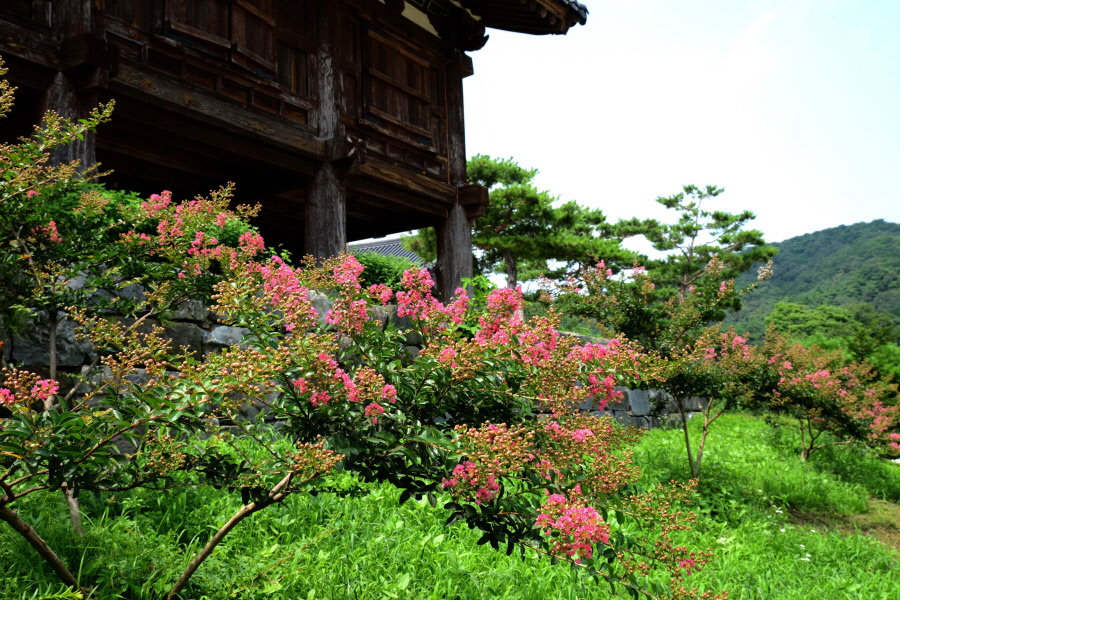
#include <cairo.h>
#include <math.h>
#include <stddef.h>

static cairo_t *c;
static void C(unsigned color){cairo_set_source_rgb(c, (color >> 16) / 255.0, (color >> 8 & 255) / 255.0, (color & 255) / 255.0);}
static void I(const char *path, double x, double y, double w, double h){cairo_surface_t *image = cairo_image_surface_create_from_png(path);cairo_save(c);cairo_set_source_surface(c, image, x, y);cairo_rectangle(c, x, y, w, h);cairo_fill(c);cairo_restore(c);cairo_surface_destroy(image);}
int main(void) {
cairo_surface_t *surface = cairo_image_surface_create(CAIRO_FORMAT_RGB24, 1119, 643);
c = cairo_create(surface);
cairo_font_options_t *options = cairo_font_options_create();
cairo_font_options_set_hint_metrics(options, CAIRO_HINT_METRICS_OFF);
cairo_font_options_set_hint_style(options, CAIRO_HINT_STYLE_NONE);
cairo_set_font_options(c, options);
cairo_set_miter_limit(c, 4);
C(0xffffff);
cairo_paint(c);
I("1.png",0,0,900,600);
cairo_surface_write_to_png(surface, "o.png");
cairo_font_options_destroy(options);
cairo_destroy(c);
cairo_surface_destroy(surface);
return 0;
}
